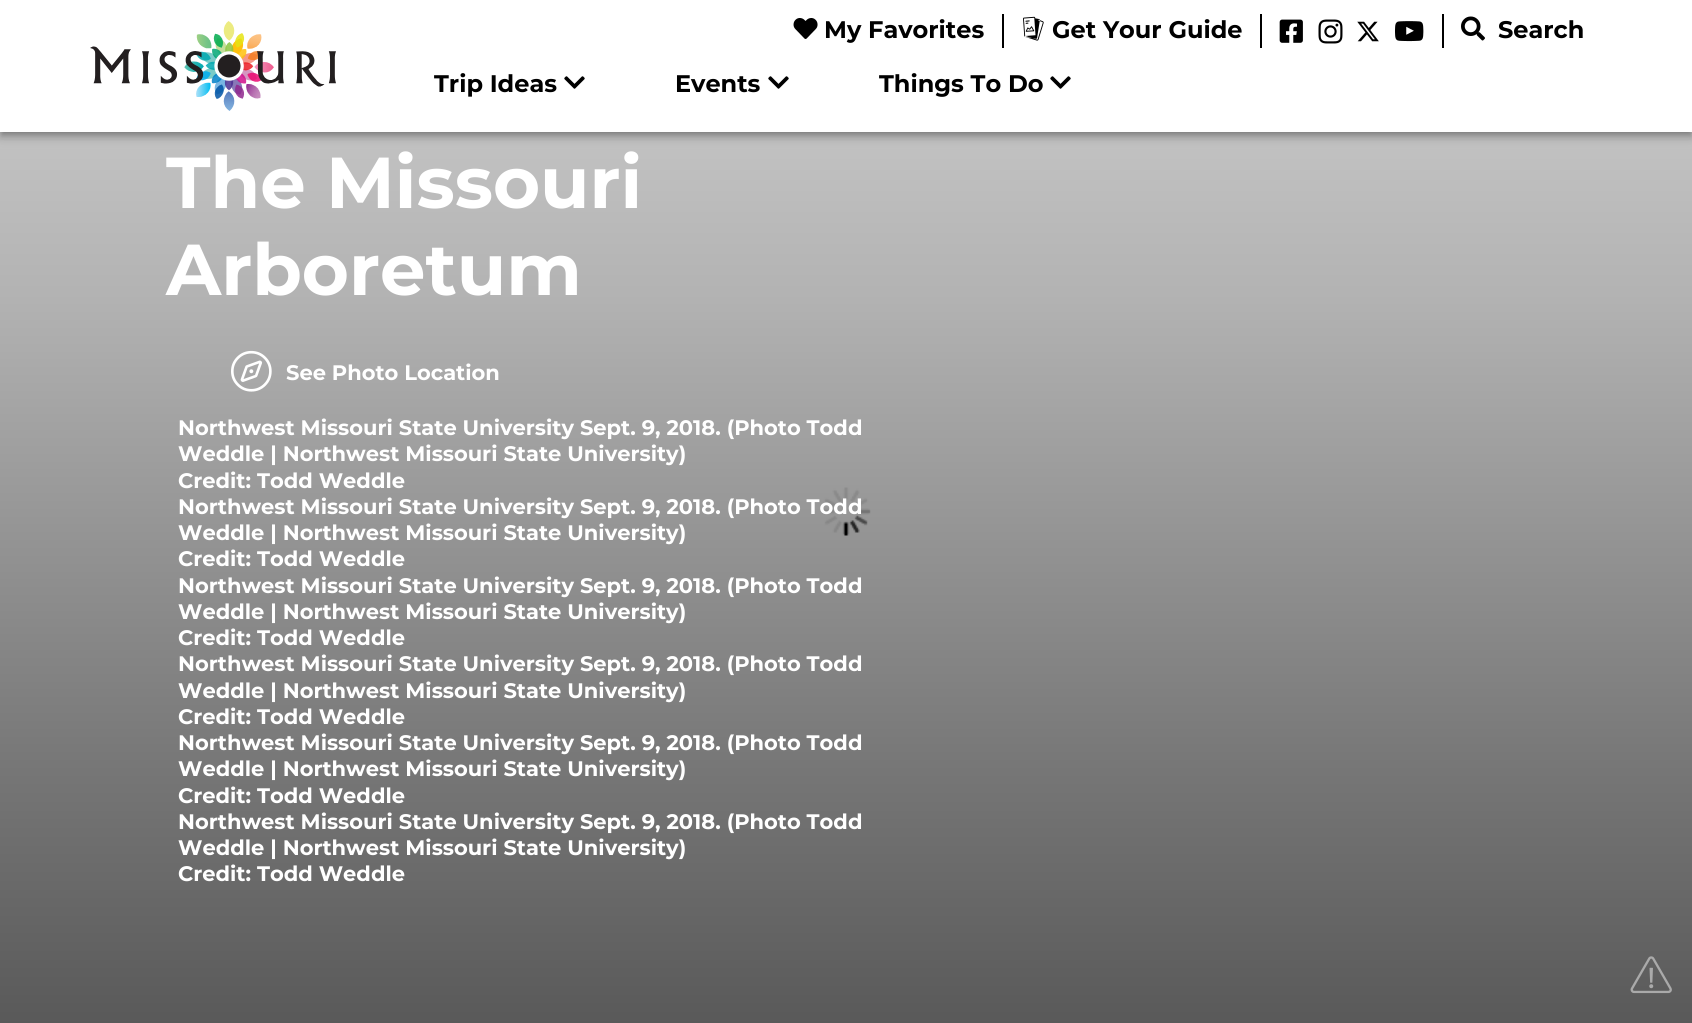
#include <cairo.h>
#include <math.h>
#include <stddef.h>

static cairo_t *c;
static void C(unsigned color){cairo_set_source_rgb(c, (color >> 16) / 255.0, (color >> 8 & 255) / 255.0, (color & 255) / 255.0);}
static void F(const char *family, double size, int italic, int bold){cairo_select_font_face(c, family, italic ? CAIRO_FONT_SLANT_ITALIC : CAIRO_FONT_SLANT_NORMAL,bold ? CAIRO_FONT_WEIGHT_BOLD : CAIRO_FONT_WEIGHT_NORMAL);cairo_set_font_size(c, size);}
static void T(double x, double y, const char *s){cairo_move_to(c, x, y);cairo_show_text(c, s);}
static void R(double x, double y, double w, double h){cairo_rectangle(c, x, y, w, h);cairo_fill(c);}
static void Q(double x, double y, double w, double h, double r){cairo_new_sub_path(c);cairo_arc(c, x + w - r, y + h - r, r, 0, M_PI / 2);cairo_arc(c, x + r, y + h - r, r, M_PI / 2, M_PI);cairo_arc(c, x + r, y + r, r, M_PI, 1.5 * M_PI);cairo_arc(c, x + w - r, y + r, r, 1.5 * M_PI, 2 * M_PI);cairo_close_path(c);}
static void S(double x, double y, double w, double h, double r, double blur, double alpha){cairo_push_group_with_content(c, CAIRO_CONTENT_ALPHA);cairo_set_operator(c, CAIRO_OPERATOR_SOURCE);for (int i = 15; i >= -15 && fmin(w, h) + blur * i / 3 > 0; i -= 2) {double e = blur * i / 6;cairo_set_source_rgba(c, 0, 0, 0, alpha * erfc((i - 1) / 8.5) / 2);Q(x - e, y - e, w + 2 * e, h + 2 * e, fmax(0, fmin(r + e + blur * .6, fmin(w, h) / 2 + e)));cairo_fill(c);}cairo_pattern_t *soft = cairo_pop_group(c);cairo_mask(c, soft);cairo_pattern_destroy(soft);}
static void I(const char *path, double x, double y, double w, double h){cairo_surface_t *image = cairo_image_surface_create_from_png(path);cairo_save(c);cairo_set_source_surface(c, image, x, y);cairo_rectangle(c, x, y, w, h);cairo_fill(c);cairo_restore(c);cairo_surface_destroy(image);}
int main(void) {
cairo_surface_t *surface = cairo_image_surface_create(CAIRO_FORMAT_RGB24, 1692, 1023);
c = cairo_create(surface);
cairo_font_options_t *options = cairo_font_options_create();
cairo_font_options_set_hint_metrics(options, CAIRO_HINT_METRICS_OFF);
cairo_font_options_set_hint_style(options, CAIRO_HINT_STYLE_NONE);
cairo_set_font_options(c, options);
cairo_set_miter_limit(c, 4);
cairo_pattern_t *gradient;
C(0xffffff);
cairo_paint(c);
I("11.png",822,487,49,49);
gradient = cairo_pattern_create_linear(846,1023,846,0);
cairo_pattern_add_color_stop_rgba(gradient,0,0,0,0,.65);
cairo_pattern_add_color_stop_rgba(gradient,.24,0,0,0,.54);
cairo_pattern_add_color_stop_rgba(gradient,.71,0,0,0,.3);
cairo_pattern_add_color_stop_rgba(gradient,1,0,0,0,.19);
cairo_set_source(c,gradient);
cairo_pattern_destroy(gradient);
R(0,132,1692,891);
C(0x000000);
S(0,2,1692,132,0,7.5,.12);
S(0,6,1692,132,0,4,.14);
S(2,5,1689,129,0,3,.2);
C(0xffffff);
R(0,0,1692,132);
I("1.png",90,21,246,90);
C(0x000000);
R(1002,14,2,34);
I("2.png",793,18,25,21);
F("Montserrat",24,0,1);
T(824,38,"My Favorites");
R(1260,14,2,34);
I("3.png",1023,16,21,25);
T(1052,38,"Get Your Guide");
R(1442,14,2,34);
I("4.png",1279,19,24,24);
I("5.png",1318,19,25,25);
I("6.png",1357,21,22,21);
I("7.png",1395,21,29,21);
I("8.png",1461,16,24,25);
T(1498,38,"Search");
T(434,92,"Trip Ideas");
I("9.png",564,76,21,13);
T(675,92,"Events");
I("9.png",768,76,21,13);
T(879,92,"Things To Do");
I("9.png",1050,76,21,13);
F("Montserrat",72,0,1);
C(0xffffff);
T(166,208,"The Missouri");
T(166,295,"Arboretum");
I("10.png",231,350,41,42);
F("Montserrat",21,0,1);
T(286,380,"See Photo Location");
T(178,435,"Northwest Missouri State University Sept. 9, 2018. (Photo Todd");
T(178,461,"Weddle | Northwest Missouri State University)");
T(178,488,"Credit: Todd Weddle");
T(178,514,"Northwest Missouri State University Sept. 9, 2018. (Photo Todd");
T(178,540,"Weddle | Northwest Missouri State University)");
T(178,566,"Credit: Todd Weddle");
T(178,593,"Northwest Missouri State University Sept. 9, 2018. (Photo Todd");
T(178,619,"Weddle | Northwest Missouri State University)");
T(178,645,"Credit: Todd Weddle");
T(178,671,"Northwest Missouri State University Sept. 9, 2018. (Photo Todd");
T(178,698,"Weddle | Northwest Missouri State University)");
T(178,724,"Credit: Todd Weddle");
T(178,750,"Northwest Missouri State University Sept. 9, 2018. (Photo Todd");
T(178,776,"Weddle | Northwest Missouri State University)");
T(178,803,"Credit: Todd Weddle");
T(178,829,"Northwest Missouri State University Sept. 9, 2018. (Photo Todd");
T(178,855,"Weddle | Northwest Missouri State University)");
T(178,881,"Credit: Todd Weddle");
I("12.png",1630,956,42,38);
cairo_surface_write_to_png(surface, "o.png");
cairo_font_options_destroy(options);
cairo_destroy(c);
cairo_surface_destroy(surface);
return 0;
}
